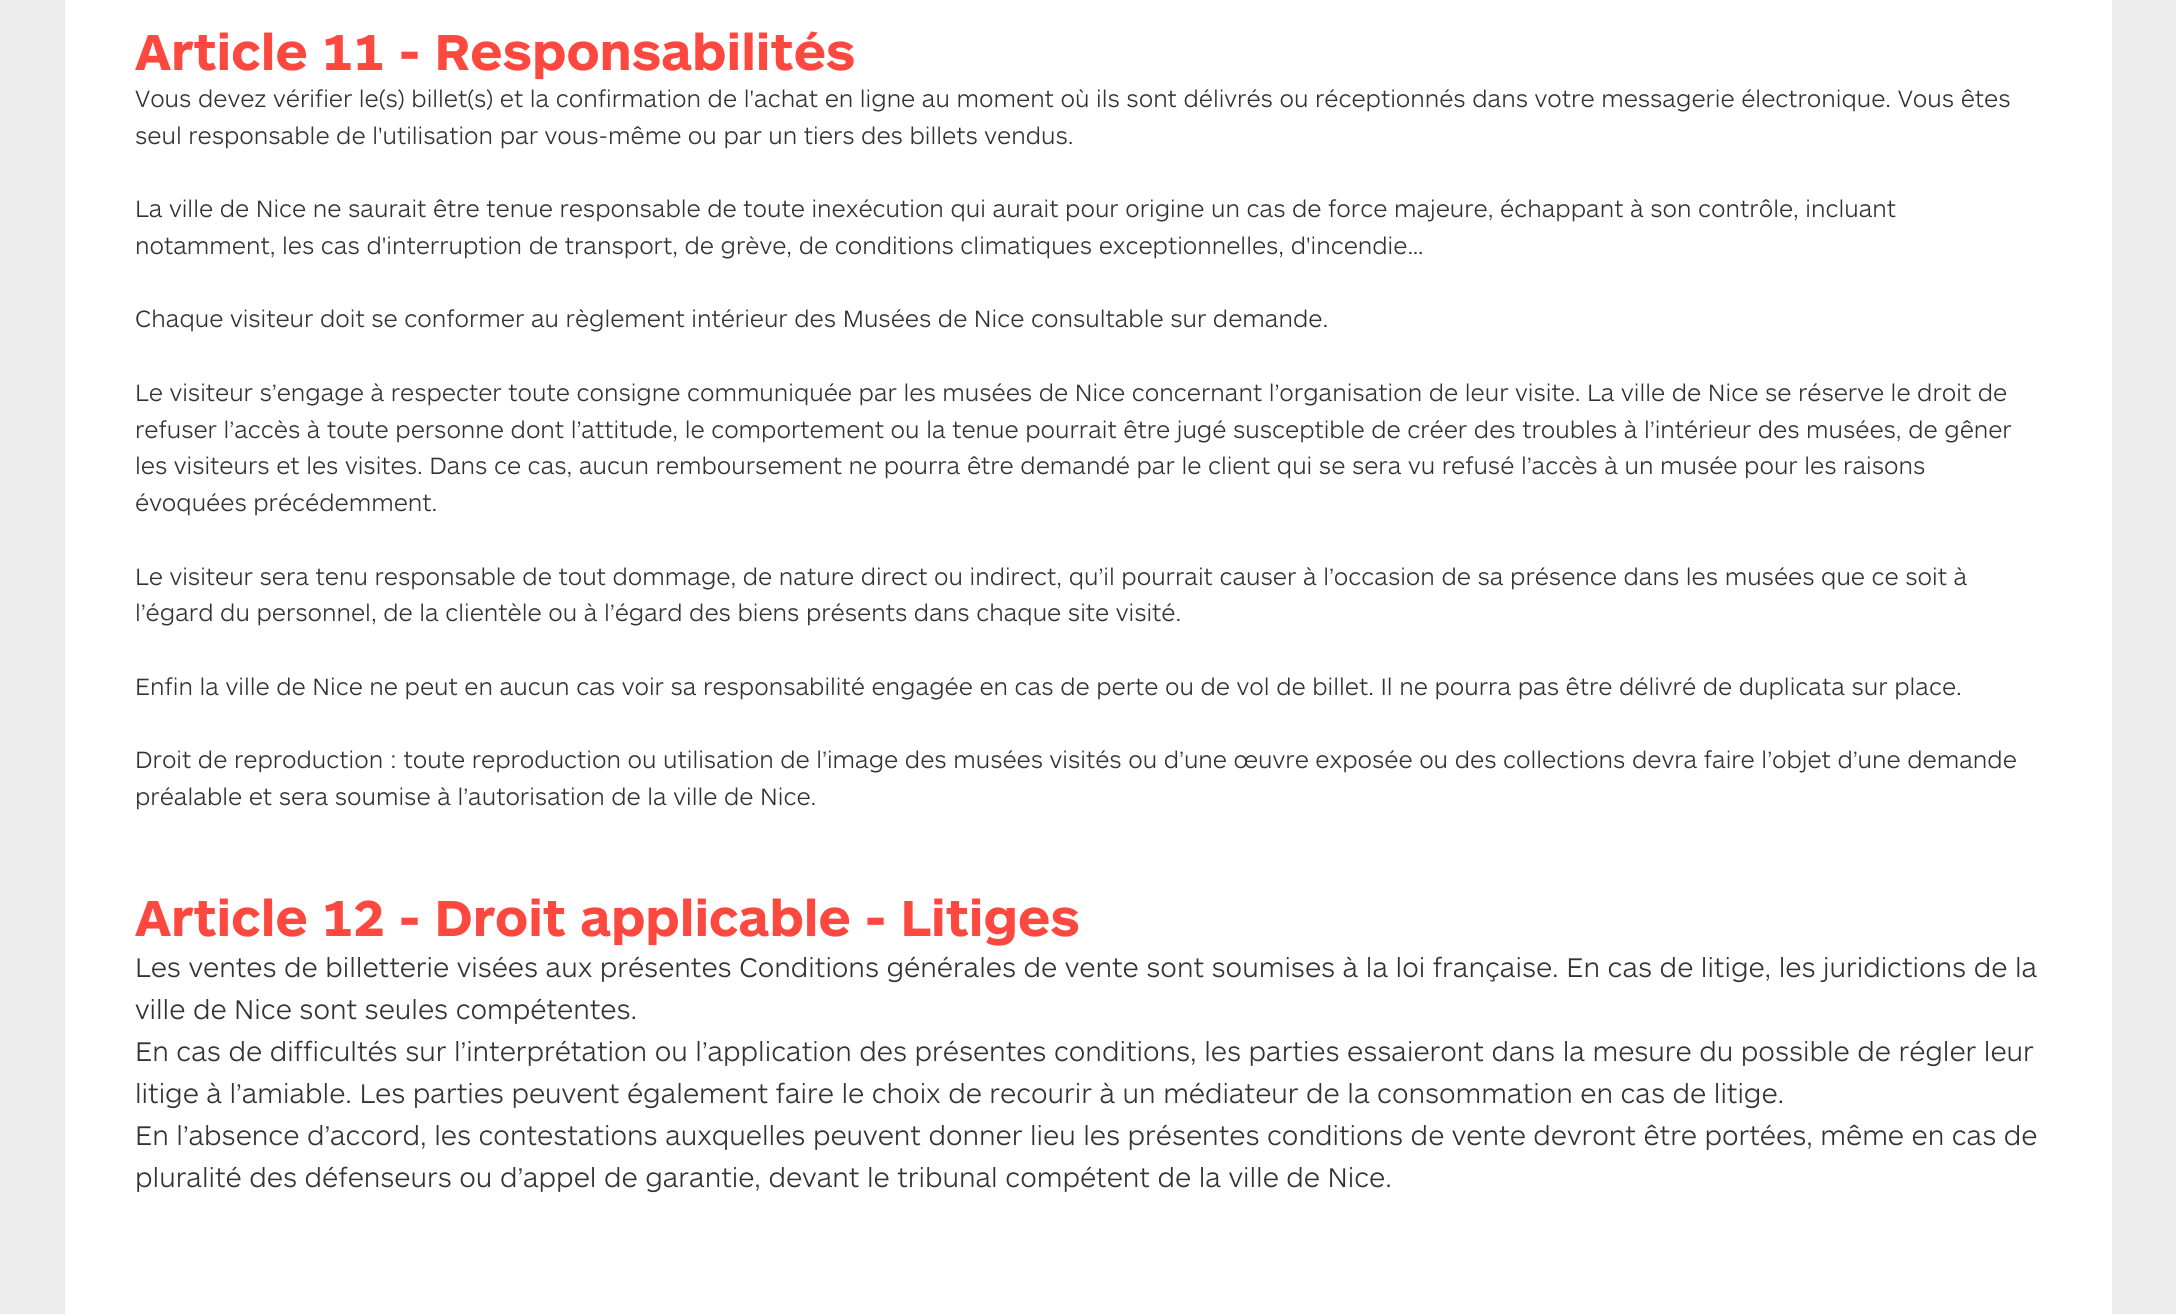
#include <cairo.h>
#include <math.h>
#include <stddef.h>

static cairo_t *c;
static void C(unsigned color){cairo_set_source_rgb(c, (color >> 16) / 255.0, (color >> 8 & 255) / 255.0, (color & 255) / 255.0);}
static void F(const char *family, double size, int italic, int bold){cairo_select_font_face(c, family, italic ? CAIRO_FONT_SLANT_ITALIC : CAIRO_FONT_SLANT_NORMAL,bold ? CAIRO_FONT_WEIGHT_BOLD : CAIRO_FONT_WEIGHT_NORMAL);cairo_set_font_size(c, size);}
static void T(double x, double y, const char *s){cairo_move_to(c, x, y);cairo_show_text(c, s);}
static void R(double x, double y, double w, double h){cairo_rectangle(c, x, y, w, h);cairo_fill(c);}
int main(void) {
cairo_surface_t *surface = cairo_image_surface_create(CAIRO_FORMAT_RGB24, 2176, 1314);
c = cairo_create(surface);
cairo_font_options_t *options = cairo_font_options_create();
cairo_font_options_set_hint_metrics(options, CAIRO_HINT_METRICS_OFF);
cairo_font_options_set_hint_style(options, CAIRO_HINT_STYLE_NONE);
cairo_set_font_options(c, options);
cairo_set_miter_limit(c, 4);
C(0xededed);
cairo_paint(c);
C(0xffffff);
R(65,0,2047,1314);
F("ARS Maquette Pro",52.5,0,1);
C(0xfd483f);
T(135,70,"Article 11 - Responsabilités");
F("ARS Maquette Pro Light",24.5,0,0);
C(0x333333);
T(135,107,"Vous devez vérifier le(s) billet(s) et la confirmation de l'achat en ligne au moment où ils sont délivrés ou réceptionnés dans votre messagerie électronique. Vous êtes");
T(135,144,"seul responsable de l'utilisation par vous-même ou par un tiers des billets vendus.");
T(135,217,"La ville de Nice ne saurait être tenue responsable de toute inexécution qui aurait pour origine un cas de force majeure, échappant à son contrôle, incluant");
T(135,254,"notamment, les cas d'interruption de transport, de grève, de conditions climatiques exceptionnelles, d'incendie…");
T(135,327,"Chaque visiteur doit se conformer au règlement intérieur des Musées de Nice consultable sur demande.");
T(135,401,"Le visiteur s’engage à respecter toute consigne communiquée par les musées de Nice concernant l’organisation de leur visite. La ville de Nice se réserve le droit de");
T(135,438,"refuser l’accès à toute personne dont l’attitude, le comportement ou la tenue pourrait être jugé susceptible de créer des troubles à l’intérieur des musées, de gêner");
T(135,474,"les visiteurs et les visites. Dans ce cas, aucun remboursement ne pourra être demandé par le client qui se sera vu refusé l’accès à un musée pour les raisons");
T(135,511,"évoquées précédemment.");
T(135,585,"Le visiteur sera tenu responsable de tout dommage, de nature direct ou indirect, qu’il pourrait causer à l’occasion de sa présence dans les musées que ce soit à");
T(135,621,"l’égard du personnel, de la clientèle ou à l’égard des biens présents dans chaque site visité.");
T(135,695,"Enfin la ville de Nice ne peut en aucun cas voir sa responsabilité engagée en cas de perte ou de vol de billet. Il ne pourra pas être délivré de duplicata sur place.");
T(135,768,"Droit de reproduction : toute reproduction ou utilisation de l’image des musées visités ou d’une œuvre exposée ou des collections devra faire l’objet d’une demande");
T(135,805,"préalable et sera soumise à l’autorisation de la ville de Nice.");
F("ARS Maquette Pro",52.5,0,1);
C(0xfd483f);
T(135,936,"Article 12 - Droit applicable - Litiges");
F("ARS Maquette Pro Light",28,0,0);
C(0x333333);
T(135,977,"Les ventes de billetterie visées aux présentes Conditions générales de vente sont soumises à la loi française. En cas de litige, les juridictions de la");
T(135,1019,"ville de Nice sont seules compétentes.");
T(135,1061,"En cas de difficultés sur l’interprétation ou l’application des présentes conditions, les parties essaieront dans la mesure du possible de régler leur");
T(135,1103,"litige à l’amiable. Les parties peuvent également faire le choix de recourir à un médiateur de la consommation en cas de litige.");
T(135,1145,"En l’absence d’accord, les contestations auxquelles peuvent donner lieu les présentes conditions de vente devront être portées, même en cas de");
T(135,1187,"pluralité des défenseurs ou d’appel de garantie, devant le tribunal compétent de la ville de Nice.");
cairo_surface_write_to_png(surface, "o.png");
cairo_font_options_destroy(options);
cairo_destroy(c);
cairo_surface_destroy(surface);
return 0;
}
